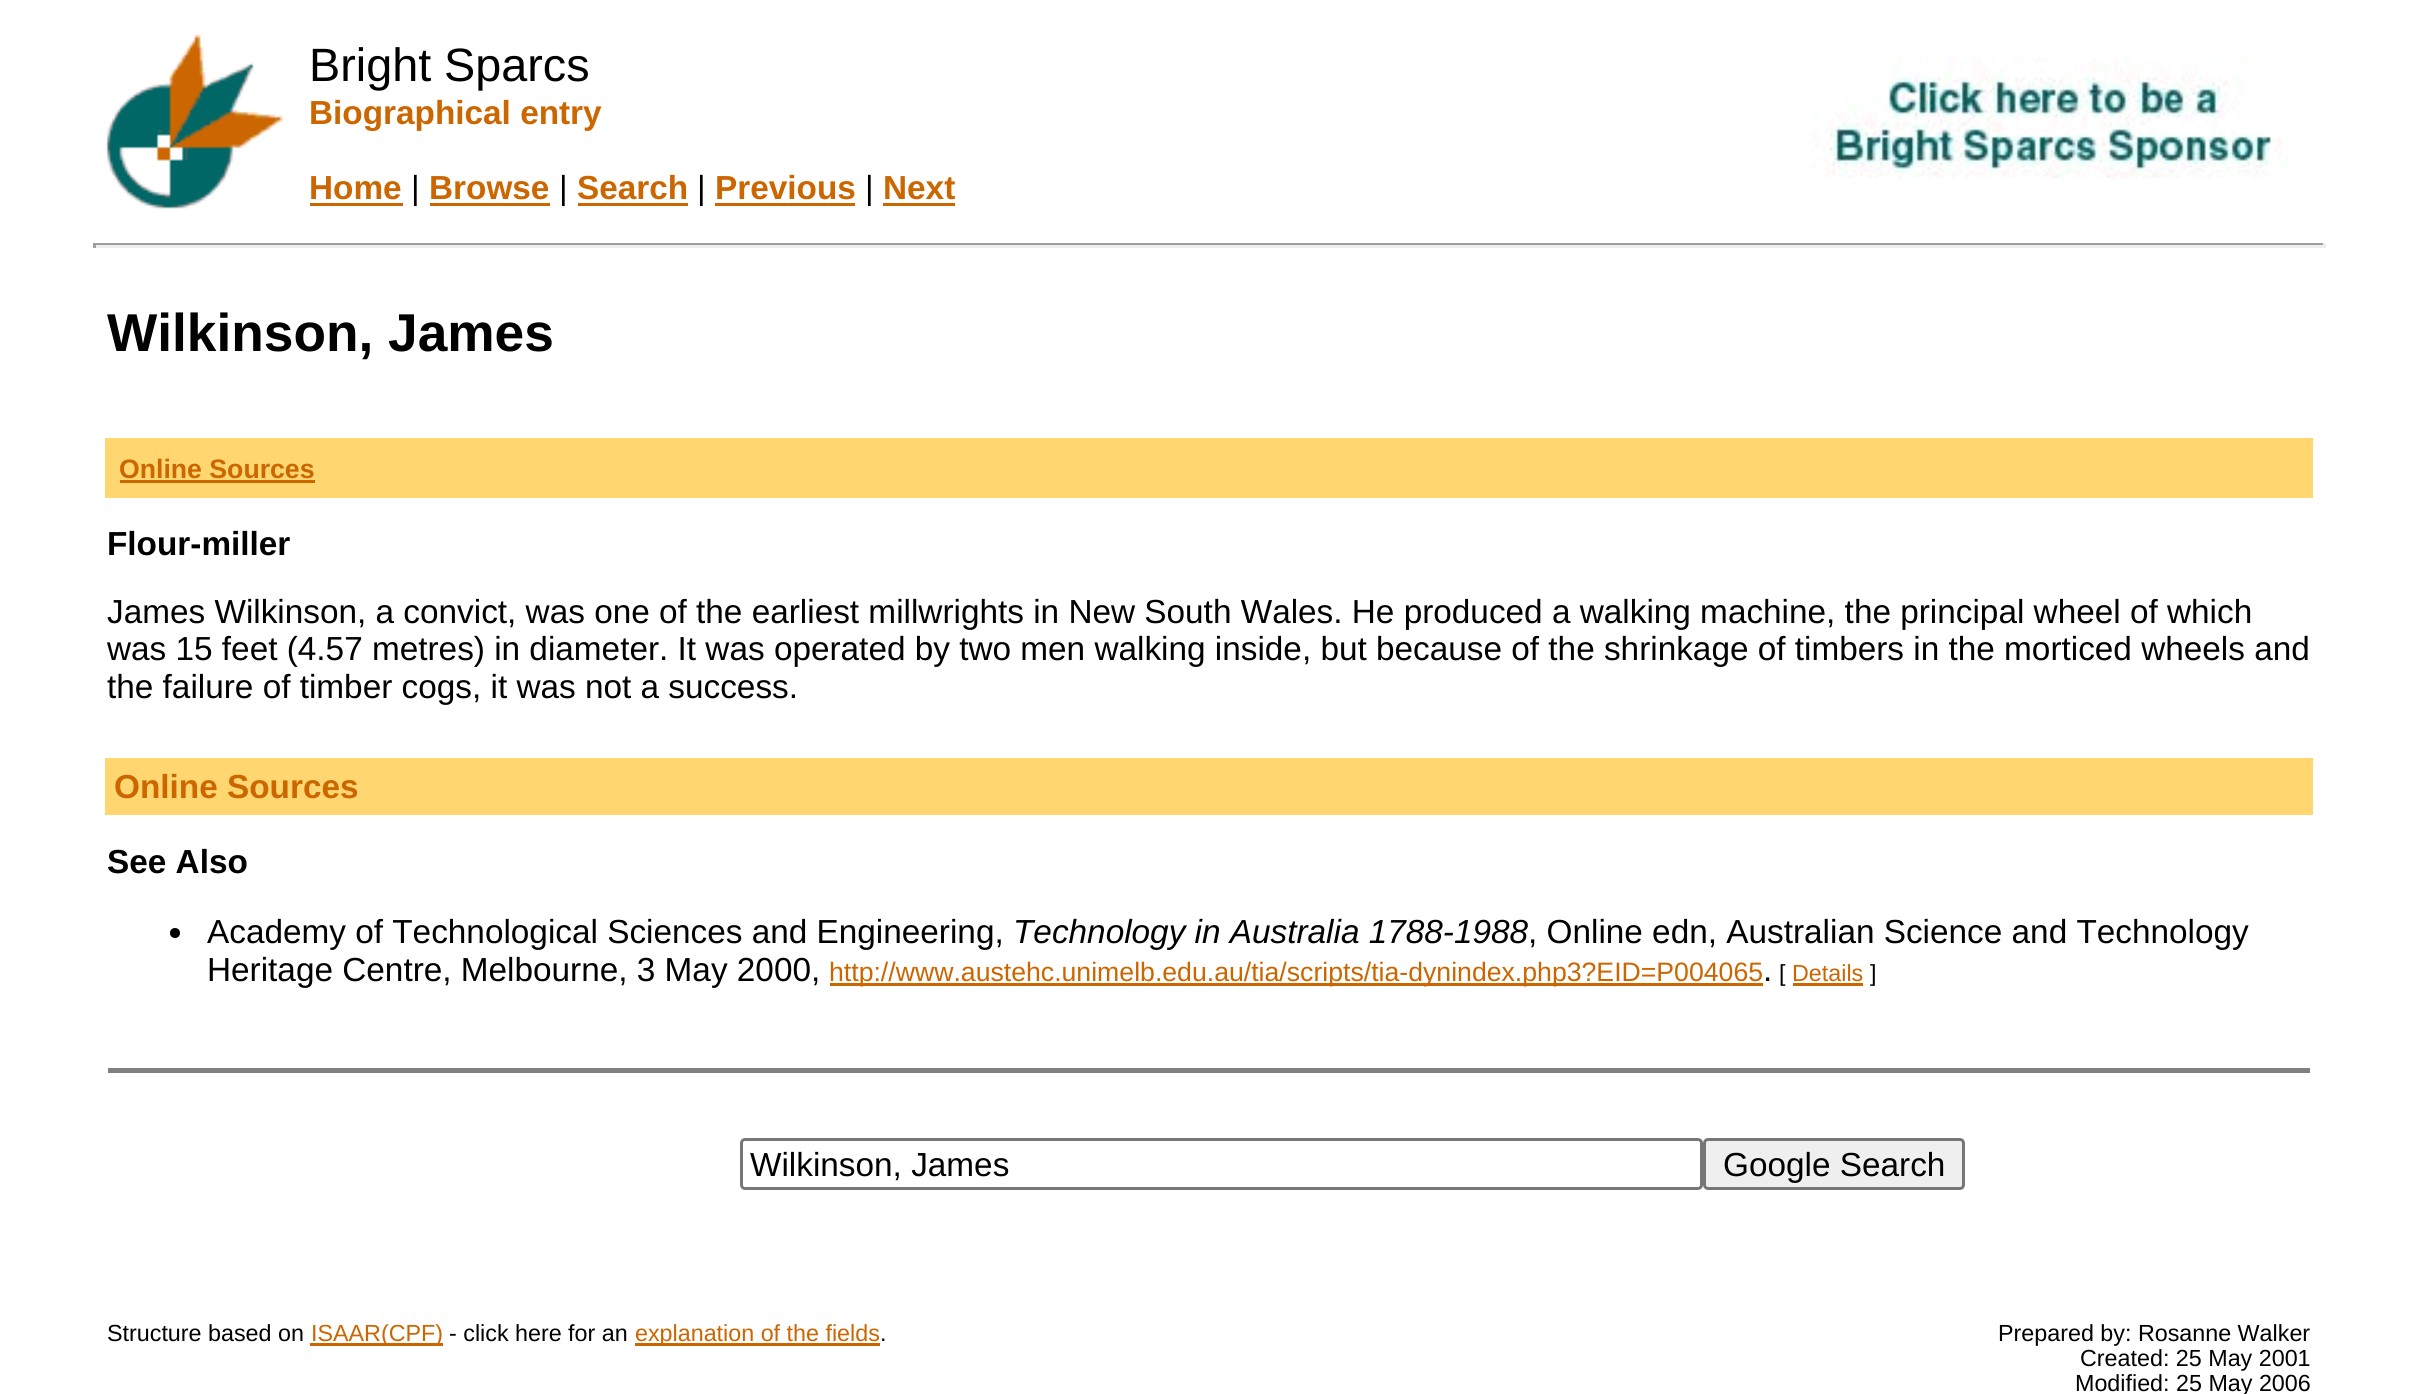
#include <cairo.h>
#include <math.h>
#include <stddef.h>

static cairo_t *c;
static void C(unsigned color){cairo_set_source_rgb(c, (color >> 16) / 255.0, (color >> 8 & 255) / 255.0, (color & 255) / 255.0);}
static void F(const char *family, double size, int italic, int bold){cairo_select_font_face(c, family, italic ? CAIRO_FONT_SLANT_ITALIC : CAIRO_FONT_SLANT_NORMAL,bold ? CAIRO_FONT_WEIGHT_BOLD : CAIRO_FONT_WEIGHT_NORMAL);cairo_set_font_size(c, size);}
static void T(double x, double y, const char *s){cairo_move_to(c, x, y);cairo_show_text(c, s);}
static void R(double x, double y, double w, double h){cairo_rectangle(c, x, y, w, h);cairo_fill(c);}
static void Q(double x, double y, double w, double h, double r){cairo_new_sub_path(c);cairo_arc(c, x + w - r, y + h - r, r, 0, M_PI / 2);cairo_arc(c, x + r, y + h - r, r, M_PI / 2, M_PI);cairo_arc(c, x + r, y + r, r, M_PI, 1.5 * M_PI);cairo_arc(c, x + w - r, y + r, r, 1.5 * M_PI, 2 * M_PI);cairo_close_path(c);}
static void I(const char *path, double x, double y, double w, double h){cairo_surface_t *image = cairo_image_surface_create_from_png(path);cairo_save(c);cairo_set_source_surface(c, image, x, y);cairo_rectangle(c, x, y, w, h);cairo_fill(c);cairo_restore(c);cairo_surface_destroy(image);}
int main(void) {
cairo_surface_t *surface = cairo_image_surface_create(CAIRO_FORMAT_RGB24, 2416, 1394);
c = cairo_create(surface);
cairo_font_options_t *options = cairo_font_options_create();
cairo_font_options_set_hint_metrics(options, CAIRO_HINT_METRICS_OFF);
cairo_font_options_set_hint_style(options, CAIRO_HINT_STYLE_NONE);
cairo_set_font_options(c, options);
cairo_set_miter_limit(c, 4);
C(0xffffff);
cairo_paint(c);
I("1.png",106,34,178,175);
F("Liberation Sans",46.75,0,0);
C(0x000000);
T(309,81,"Bright Sparcs");
F("Liberation Sans",33.33,0,1);
C(0xcc6600);
T(309,124,"Biographical entry");
T(309,199,"Home");
R(310,203,93,3);
F("Liberation Sans",33.33,0,0);
C(0x000000);
T(411,199,"|");
F("Liberation Sans",33.33,0,1);
C(0xcc6600);
T(429,199,"Browse");
R(430,203,120,3);
F("Liberation Sans",33.33,0,0);
C(0x000000);
T(559,199,"|");
F("Liberation Sans",33.33,0,1);
C(0xcc6600);
T(577,199,"Search");
R(578,203,110,3);
F("Liberation Sans",33.33,0,0);
C(0x000000);
T(697,199,"|");
F("Liberation Sans",33.33,0,1);
C(0xcc6600);
T(715,199,"Previous");
R(715,203,140,3);
F("Liberation Sans",33.33,0,0);
C(0x000000);
T(865,199,"|");
F("Liberation Sans",33.33,0,1);
C(0xcc6600);
T(883,199,"Next");
R(883,203,72,3);
I("2.png",1810,57,480,123);
C(0x9f9f9f);
R(93,243,2232,2);
C(0xeeeeee);
R(2323,243,3,5);
R(93,245,2232,3);
C(0x9f9f9f);
R(93,243,3,5);
F("Liberation Sans",53.25,0,1);
C(0x000000);
T(107,351,"Wilkinson, James");
C(0xffd670);
R(105,438,2208,60);
F("Liberation Sans",26.65,0,1);
C(0xcc6600);
T(119,478,"Online Sources");
R(120,480,195,3);
F("Liberation Sans",33.33,0,1);
C(0x000000);
T(107,555,"Flour-miller");
F("Liberation Sans",33.33,0,0);
T(107,623,"James Wilkinson, a convict, was one of the earliest millwrights in New South Wales. He produced a walking machine, the principal wheel of which");
T(107,660,"was 15 feet (4.57 metres) in diameter. It was operated by two men walking inside, but because of the shrinkage of timbers in the morticed wheels and");
T(107,698,"the failure of timber cogs, it was not a success.");
C(0xffd670);
R(105,758,2208,57);
F("Liberation Sans",33.33,0,1);
C(0xcc6600);
T(114,798,"Online Sources");
C(0x000000);
T(107,873,"See Also");
cairo_new_path(c);
cairo_arc(c,175,933,5,0,2 * M_PI);
cairo_fill(c);
F("Liberation Sans",33.33,0,0);
T(207,943,"Academy of Technological Sciences and Engineering,");
F("Liberation Sans",33.33,1,0);
T(1013,943,"Technology in Australia 1788-1988");
F("Liberation Sans",33.33,0,0);
T(1528,943,", Online edn, Australian Science and Technology");
T(207,981,"Heritage Centre, Melbourne, 3 May 2000,");
C(0xcc6600);
R(830,983,933,3);
F("Liberation Sans",26.65,0,0);
T(829,981,"http://www.austehc.unimelb.edu.au/tia/scripts/tia-dynindex.php3?EID=P004065");
F("Liberation Sans",33.33,0,0);
C(0x000000);
T(1763,981,".");
F("Liberation Sans",23.3,0,0);
T(1779,981,"[");
C(0xcc6600);
T(1792,981,"Details");
R(1793,983,70,3);
C(0x000000);
T(1870,981,"]");
C(0x808080);
R(108,1068,2202,5);
Q(741.5,1139.5,960,49,3.5);
C(0x767676);
cairo_set_line_width(c,3);
cairo_stroke(c);
F("Liberation Sans",33.33,0,0);
C(0x000000);
T(750,1176,"Wilkinson, James");
C(0xefefef);
Q(1704.5,1139.5,259,49,3.5);
cairo_fill_preserve(c);
C(0x767676);
cairo_stroke(c);
C(0x000000);
T(1723,1176,"Google Search");
F("Liberation Sans",23.3,0,0);
T(107,1341,"Structure based on");
C(0xcc6600);
R(310,1343,133,3);
T(311,1341,"ISAAR(CPF)");
C(0x000000);
T(449,1341,"- click here for an");
C(0xcc6600);
R(635,1343,245,3);
T(635,1341,"explanation of the fields");
C(0x000000);
T(880,1341,".");
T(1998,1341,"Prepared by: Rosanne Walker");
T(2080,1366,"Created: 25 May 2001");
T(2075,1391,"Modified: 25 May 2006");
cairo_surface_write_to_png(surface, "o.png");
cairo_font_options_destroy(options);
cairo_destroy(c);
cairo_surface_destroy(surface);
return 0;
}
